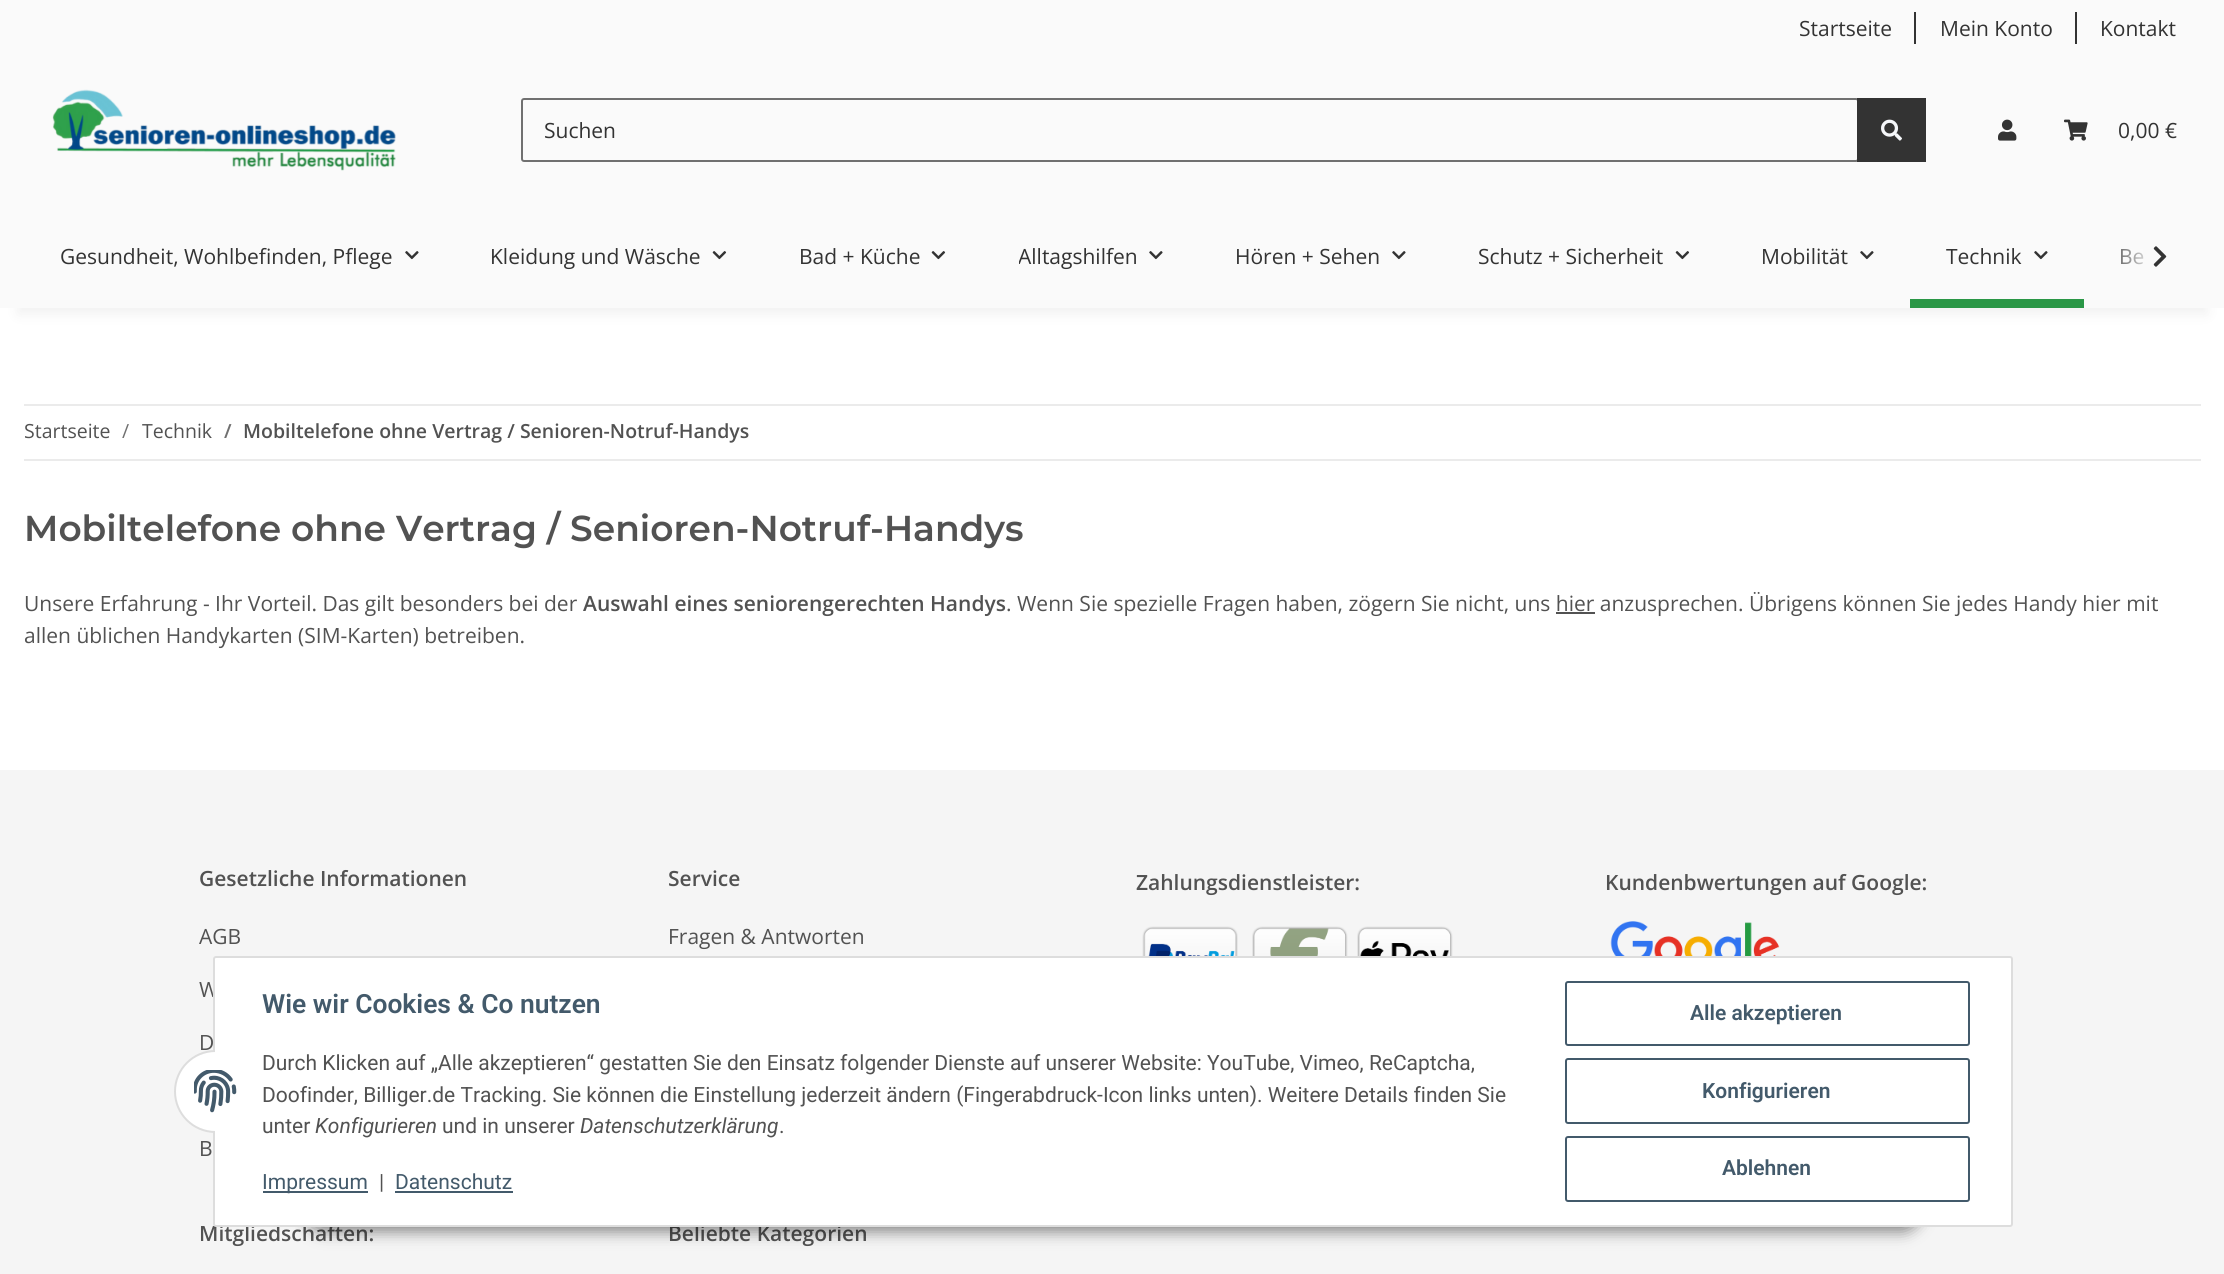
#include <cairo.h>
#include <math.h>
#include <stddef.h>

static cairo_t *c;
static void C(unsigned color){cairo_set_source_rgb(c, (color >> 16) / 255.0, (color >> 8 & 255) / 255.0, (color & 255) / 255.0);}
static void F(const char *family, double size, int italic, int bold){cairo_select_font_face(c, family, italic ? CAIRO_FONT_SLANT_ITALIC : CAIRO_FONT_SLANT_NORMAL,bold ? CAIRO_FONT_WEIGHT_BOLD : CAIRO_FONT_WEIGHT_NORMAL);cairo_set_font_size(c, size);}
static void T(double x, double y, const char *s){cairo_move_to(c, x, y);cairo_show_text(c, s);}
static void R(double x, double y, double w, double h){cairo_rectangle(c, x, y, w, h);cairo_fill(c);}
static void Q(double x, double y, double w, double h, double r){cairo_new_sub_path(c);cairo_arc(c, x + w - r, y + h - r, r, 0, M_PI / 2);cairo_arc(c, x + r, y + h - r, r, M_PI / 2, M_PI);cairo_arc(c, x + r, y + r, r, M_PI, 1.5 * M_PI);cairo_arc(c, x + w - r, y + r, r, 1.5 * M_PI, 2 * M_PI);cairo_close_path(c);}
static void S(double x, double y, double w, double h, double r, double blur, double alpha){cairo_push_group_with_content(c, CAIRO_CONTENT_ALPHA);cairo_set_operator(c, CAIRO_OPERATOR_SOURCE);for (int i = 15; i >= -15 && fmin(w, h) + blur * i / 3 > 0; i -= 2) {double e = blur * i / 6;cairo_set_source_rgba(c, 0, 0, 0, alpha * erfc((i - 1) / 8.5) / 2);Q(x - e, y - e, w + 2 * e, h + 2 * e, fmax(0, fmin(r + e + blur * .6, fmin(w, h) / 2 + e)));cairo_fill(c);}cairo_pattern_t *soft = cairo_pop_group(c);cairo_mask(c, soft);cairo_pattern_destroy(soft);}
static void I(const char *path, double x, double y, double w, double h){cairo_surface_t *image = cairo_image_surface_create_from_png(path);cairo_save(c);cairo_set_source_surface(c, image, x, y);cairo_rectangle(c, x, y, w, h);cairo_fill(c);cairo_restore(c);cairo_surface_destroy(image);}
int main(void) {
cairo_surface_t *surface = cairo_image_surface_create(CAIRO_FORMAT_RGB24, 2224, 1274);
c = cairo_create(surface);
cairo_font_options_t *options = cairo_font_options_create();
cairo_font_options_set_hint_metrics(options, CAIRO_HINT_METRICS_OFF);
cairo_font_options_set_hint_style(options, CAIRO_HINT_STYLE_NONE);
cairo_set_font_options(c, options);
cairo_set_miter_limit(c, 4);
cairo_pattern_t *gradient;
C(0xffffff);
cairo_paint(c);
C(0x000000);
S(18,42,2189,272,0,7,.06);
C(0xfafafa);
R(0,0,2224,308);
F("Open Sans",21,0,0);
C(0x333333);
T(1799,36,"Startseite");
R(1914,12,2,32);
T(1940,36,"Mein Konto");
R(2075,12,2,32);
T(2100,36,"Kontakt");
I("1.png",52,89,344,82);
Q(522,99,1336,62,2);
C(0x707070);
cairo_stroke(c);
C(0x333333);
T(544,138,"Suchen");
R(1857,98,69,64);
I("2.png",1881,119,21,22);
I("3.png",1998,119,19,22);
I("4.png",2064,119,24,22);
T(2118,138,"0,00 €");
T(2119,264,"Be");
gradient = cairo_pattern_create_linear(2105,257,2177,257);
cairo_pattern_add_color_stop_rgba(gradient,0,0.98,0.98,0.98,.01);
cairo_pattern_add_color_stop_rgba(gradient,.7,0.98,0.98,0.98,1);
cairo_set_source(c,gradient);
cairo_pattern_destroy(gradient);
R(2121,249,23,16);
I("5.png",2153,246,14,21);
C(0x333333);
T(60,264,"Gesundheit, Wohlbefinden, Pflege");
I("6.png",405,251,14,9);
T(490,264,"Kleidung und Wäsche");
I("7.png",712,251,15,9);
T(799,264,"Bad + Küche");
I("7.png",931,251,15,9);
cairo_save(c);
cairo_rectangle(c,1019,240,118,32);
cairo_clip(c);
T(1018,264,"Alltagshilfen");
cairo_restore(c);
I("6.png",1149,251,14,9);
T(1235,264,"Hören + Sehen");
I("6.png",1392,251,14,9);
T(1478,264,"Schutz + Sicherheit");
I("7.png",1675,251,15,9);
T(1761,264,"Mobilität");
I("6.png",1860,251,14,9);
T(1946,264,"Technik");
I("6.png",2034,251,14,9);
C(0x2a9746);
R(1910,299,174,9);
C(0xebebeb);
R(24,404,2177,2);
R(24,459,2177,2);
F("Open Sans",19.5,0,0);
C(0x525252);
T(24,438,"Startseite");
C(0x707070);
T(122,438,"/");
C(0x525252);
T(142,438,"Technik");
F("Open Sans SemiBold",19.5,0,0);
C(0x707070);
T(224,438,"/");
C(0x525252);
T(243,438,"Mobiltelefone ohne Vertrag / Senioren-Notruf-Handys");
F("Montserrat SemiBold",36,0,0);
T(24,541,"Mobiltelefone ohne Vertrag / Senioren-Notruf-Handys");
F("Open Sans",21,0,0);
T(24,611,"Unsere Erfahrung - Ihr Vorteil. Das gilt besonders bei der");
F("Open Sans SemiBold",21,0,0);
T(583,611,"Auswahl eines seniorengerechten Handys");
F("Open Sans",21,0,0);
T(1006,611,". Wenn Sie spezielle Fragen haben, zögern Sie nicht, uns hier anzusprechen. Übrigens können Sie jedes Handy hier mit");
R(1556,612,39,2);
T(24,643,"allen üblichen Handykarten (SIM-Karten) betreiben.");
C(0xf5f5f5);
R(0,770,2224,504);
F("Open Sans SemiBold",21,0,0);
C(0x525252);
T(199,886,"Gesetzliche Informationen");
F("Open Sans",21,0,0);
T(199,944,"AGB");
T(199,997,"W");
T(199,1050,"D");
T(199,1156,"B");
F("Open Sans SemiBold",21,0,0);
T(668,886,"Service");
F("Open Sans",21,0,0);
T(668,944,"Fragen & Antworten");
F("Open Sans SemiBold",21,0,0);
T(1136,890,"Zahlungsdienstleister:");
I("8.png",1142,926,96,30);
I("9.png",1252,926,96,30);
I("10.png",1357,926,96,30);
T(1605,890,"Kundenbwertungen auf Google:");
I("11.png",1610,921,170,35);
T(199,1241,"Mitgliedschaften:");
T(668,1241,"Beliebte Kategorien");
C(0x000000);
S(303,1184,1619,48,24,7.5,.45);
C(0xffffff);
Q(214,957,1798,269,2);
cairo_fill_preserve(c);
C(0xdddddd);
cairo_stroke(c);
C(0xffffff);
cairo_arc(c,215.5,1091.5,40.5,0,2 * M_PI);
cairo_fill_preserve(c);
C(0xdddddd);
cairo_stroke(c);
C(0xffffff);
R(215,1050,42,83);
I("12.png",194,1070,43,43);
F("Roboto SemiBold",26.4,0,0);
C(0x435a6b);
T(262,1013,"Wie wir Cookies & Co nutzen");
F("Roboto",21,0,0);
C(0x525252);
T(262,1070,"Durch Klicken auf „Alle akzeptieren“ gestatten Sie den Einsatz folgender Dienste auf unserer Website: YouTube, Vimeo, ReCaptcha,");
T(262,1102,"Doofinder, Billiger.de Tracking. Sie können die Einstellung jederzeit ändern (Fingerabdruck-Icon links unten). Weitere Details finden Sie");
T(262,1133,"unter");
F("Roboto",21,1,0);
T(315,1133,"Konfigurieren");
F("Roboto",21,0,0);
T(442,1133,"und in unserer");
F("Roboto",21,1,0);
T(580,1133,"Datenschutzerklärung");
F("Roboto",21,0,0);
T(779,1133,".");
C(0x435a6b);
R(263,1191,105,2);
T(262,1189,"Impressum");
C(0x525252);
T(379,1189,"|");
C(0x435a6b);
T(395,1189,"Datenschutz");
R(395,1191,118,2);
Q(1566,982,403,63,2);
cairo_stroke(c);
F("Roboto SemiBold",21,0,0);
T(1690,1020,"Alle akzeptieren");
Q(1566,1059,403,64,2);
cairo_stroke(c);
T(1702,1098,"Konfigurieren");
Q(1566,1137,403,64,2);
cairo_stroke(c);
T(1722,1175,"Ablehnen");
cairo_surface_write_to_png(surface, "o.png");
cairo_font_options_destroy(options);
cairo_destroy(c);
cairo_surface_destroy(surface);
return 0;
}
